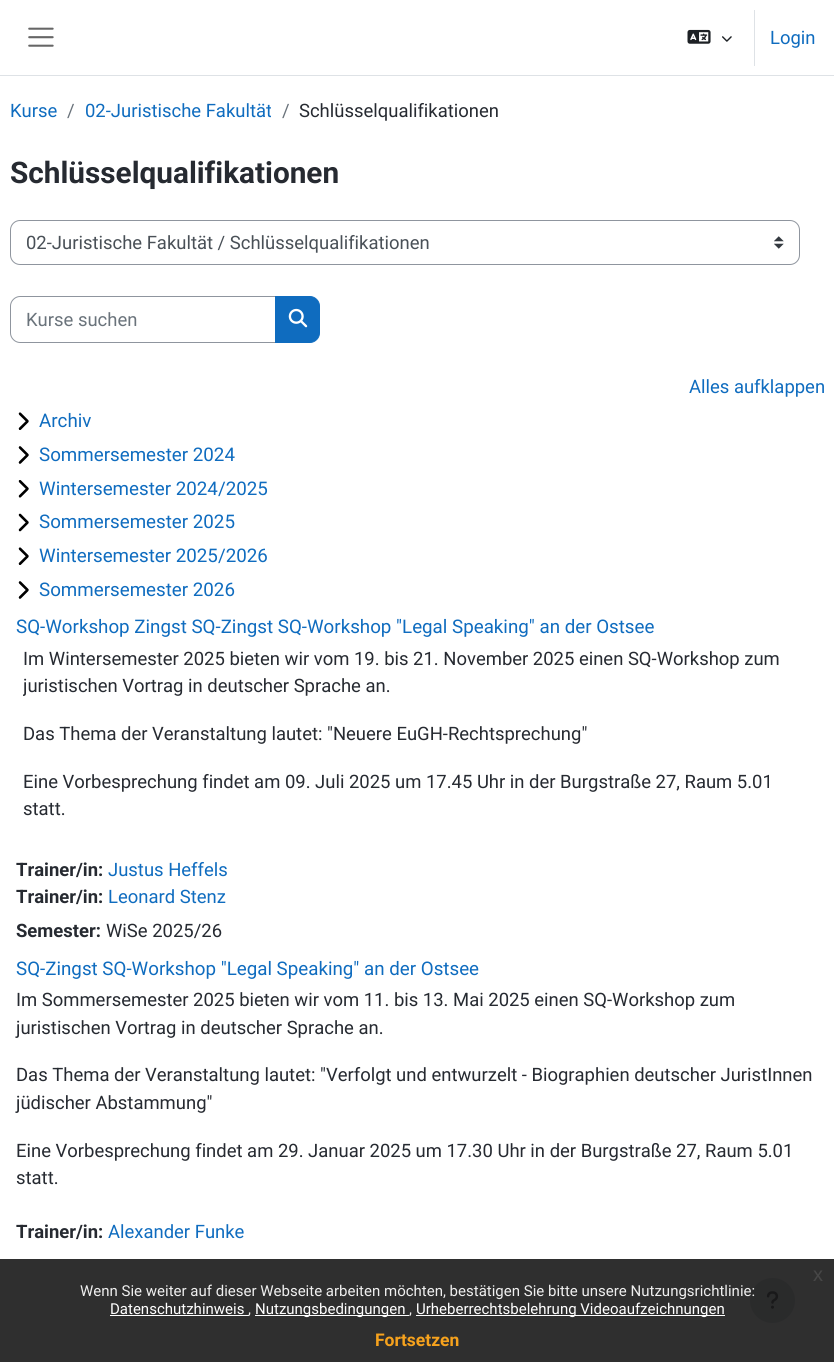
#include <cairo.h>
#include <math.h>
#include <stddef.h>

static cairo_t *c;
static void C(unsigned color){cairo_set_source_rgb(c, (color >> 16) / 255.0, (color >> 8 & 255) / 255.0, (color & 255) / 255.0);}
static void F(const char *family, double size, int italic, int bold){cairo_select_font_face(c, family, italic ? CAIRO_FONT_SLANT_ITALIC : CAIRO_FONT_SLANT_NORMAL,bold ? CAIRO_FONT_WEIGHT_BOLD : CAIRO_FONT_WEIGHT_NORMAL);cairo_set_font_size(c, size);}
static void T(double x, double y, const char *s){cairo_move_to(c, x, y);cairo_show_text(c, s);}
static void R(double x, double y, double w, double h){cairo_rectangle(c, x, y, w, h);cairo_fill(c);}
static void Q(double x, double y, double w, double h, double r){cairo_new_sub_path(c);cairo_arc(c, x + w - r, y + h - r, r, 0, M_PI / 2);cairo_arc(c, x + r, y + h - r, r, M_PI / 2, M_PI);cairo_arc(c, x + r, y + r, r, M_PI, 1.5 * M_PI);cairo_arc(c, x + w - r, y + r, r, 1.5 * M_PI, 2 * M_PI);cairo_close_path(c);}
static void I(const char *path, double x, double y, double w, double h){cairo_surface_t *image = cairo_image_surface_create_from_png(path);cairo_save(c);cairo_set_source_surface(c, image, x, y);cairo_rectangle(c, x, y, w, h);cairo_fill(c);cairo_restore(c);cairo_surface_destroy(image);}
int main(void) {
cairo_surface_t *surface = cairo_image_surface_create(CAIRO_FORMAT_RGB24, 834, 1362);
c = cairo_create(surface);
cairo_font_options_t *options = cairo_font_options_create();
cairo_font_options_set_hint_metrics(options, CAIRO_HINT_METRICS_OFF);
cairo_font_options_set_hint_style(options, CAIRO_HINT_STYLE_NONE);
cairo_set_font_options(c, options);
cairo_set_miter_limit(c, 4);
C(0xffffff);
cairo_paint(c);
C(0xdee2e6);
R(0,75,834,1);
I("1.png",28,27,26,20);
I("2.png",687,29,24,15);
I("3.png",722,36,10,6);
R(754,10,1,56);
F("Roboto",18.45,0,0);
C(0x0f6cbf);
T(770,44,"Login");
T(10,117,"Kurse");
C(0x6a737b);
T(67,117,"/");
cairo_save(c);
cairo_rectangle(c,85,96,186,28);
cairo_clip(c);
C(0x0f6cbf);
T(85,117,"02-Juristische Fakultät");
cairo_restore(c);
T(282,117,"/");
C(0x262a31);
T(299,117,"Schlüsselqualifikationen");
F("Roboto",29.75,0,1);
T(10,183,"Schlüsselqualifikationen");
I("4.png",774,236,10,13);
Q(10.5,220.5,789,44,9.5);
C(0x8f959e);
cairo_set_line_width(c,1);
cairo_stroke(c);
F("Roboto",18.45,0,0);
C(0x495057);
T(26,249,"02-Juristische Fakultät / Schlüsselqualifikationen");
cairo_new_path(c);
cairo_move_to(c,20,296.5);
cairo_line_to(c,275.5,296.5);
cairo_line_to(c,275.5,342.5);
cairo_line_to(c,20,342.5);
cairo_curve_to(c,15,342.5,10.5,338,10.5,333);
cairo_line_to(c,10.5,306);
cairo_curve_to(c,10.5,301,15,296.5,20,296.5);
cairo_close_path(c);
C(0x8f959e);
cairo_stroke(c);
C(0x6a737b);
T(26,326,"Kurse suchen");
C(0x0f6cbf);
cairo_new_path(c);
cairo_move_to(c,275.5,296.5);
cairo_line_to(c,310,296.5);
cairo_curve_to(c,315,296.5,319.5,301,319.5,306);
cairo_line_to(c,319.5,333);
cairo_curve_to(c,319.5,338,315,342.5,310,342.5);
cairo_line_to(c,275.5,342.5);
cairo_close_path(c);
cairo_fill_preserve(c);
cairo_stroke(c);
I("5.png",288,308,20,20);
T(689,393,"Alles aufklappen");
I("6.png",18,412,11,18);
F("Roboto",18.75,0,0);
T(39,427,"Archiv");
I("7.png",18,446,11,18);
T(39,461,"Sommersemester 2024");
I("8.png",18,480,11,18);
T(39,495,"Wintersemester 2024/2025");
I("9.png",18,513,11,19);
T(39,528,"Sommersemester 2025");
I("6.png",18,547,11,18);
T(39,562,"Wintersemester 2025/2026");
I("10.png",18,581,11,18);
T(39,596,"Sommersemester 2026");
T(16,633,"SQ-Workshop Zingst SQ-Zingst SQ-Workshop \"Legal Speaking\" an der Ostsee");
F("Roboto",18.45,0,0);
C(0x262a31);
T(23,665,"Im Wintersemester 2025 bieten wir vom 19. bis 21. November 2025 einen SQ-Workshop zum");
cairo_save(c);
cairo_rectangle(c,23,645,790,198);
cairo_clip(c);
T(23,692,"juristischen Vortrag in deutscher Sprache an.");
cairo_restore(c);
T(23,740,"Das Thema der Veranstaltung lautet: \"Neuere EuGH-Rechtsprechung\"");
T(23,788,"Eine Vorbesprechung findet am 09. Juli 2025 um 17.45 Uhr in der Burgstraße 27, Raum 5.01");
T(23,815,"statt.");
F("Roboto",18.45,0,1);
T(16,876,"Trainer/in:");
F("Roboto",18.45,0,0);
C(0x0f6cbf);
T(108,876,"Justus Heffels");
F("Roboto",18.45,0,1);
C(0x262a31);
T(16,903,"Trainer/in:");
F("Roboto",18.45,0,0);
C(0x0f6cbf);
T(108,903,"Leonard Stenz");
F("Roboto",18.45,0,1);
C(0x262a31);
T(16,937,"Semester:");
F("Roboto",18.45,0,0);
T(106,937,"WiSe 2025/26");
F("Roboto",18.75,0,0);
C(0x0f6cbf);
T(16,975,"SQ-Zingst SQ-Workshop \"Legal Speaking\" an der Ostsee");
F("Roboto",18.45,0,0);
C(0x262a31);
T(16,1006,"Im Sommersemester 2025 bieten wir vom 11. bis 13. Mai 2025 einen SQ-Workshop zum");
T(16,1034,"juristischen Vortrag in deutscher Sprache an.");
T(16,1081,"Das Thema der Veranstaltung lautet: \"Verfolgt und entwurzelt - Biographien deutscher JuristInnen");
T(16,1109,"jüdischer Abstammung\"");
T(16,1157,"Eine Vorbesprechung findet am 29. Januar 2025 um 17.30 Uhr in der Burgstraße 27, Raum 5.01");
T(16,1184,"statt.");
F("Roboto",18.45,0,1);
T(16,1238,"Trainer/in:");
F("Roboto",18.45,0,0);
C(0x0f6cbf);
T(108,1238,"Alexander Funke");
C(0xced4da);
cairo_new_path(c);
cairo_arc(c,772.5,1300.5,22.5,0,2 * M_PI);
cairo_fill(c);
I("11.png",766,1291,13,18);
cairo_set_source_rgba(c,0.098,0.098,0.098,0.9);
R(0,1259,834,103);
F("Liberation Sans",20,0,0);
C(0x474747);
T(813,1281,"x");
F("Roboto",15,0,0);
C(0xefefef);
T(80,1296,"Wenn Sie weiter auf dieser Webseite arbeiten möchten, bestätigen Sie bitte unsere Nutzungsrichtlinie:");
C(0xffffff);
T(110,1314,"Datenschutzhinweis");
R(110,1315,139,1);
C(0xefefef);
T(248,1314,",");
C(0xffffff);
R(255,1315,154,1);
T(255,1314,"Nutzungsbedingungen");
C(0xefefef);
T(409,1314,",");
C(0xffffff);
R(416,1315,309,1);
T(416,1314,"Urheberrechtsbelehrung Videoaufzeichnungen");
F("Roboto",17.5,0,1);
C(0xf6a21d);
T(375,1346,"Fortsetzen");
cairo_surface_write_to_png(surface, "o.png");
cairo_font_options_destroy(options);
cairo_destroy(c);
cairo_surface_destroy(surface);
return 0;
}
